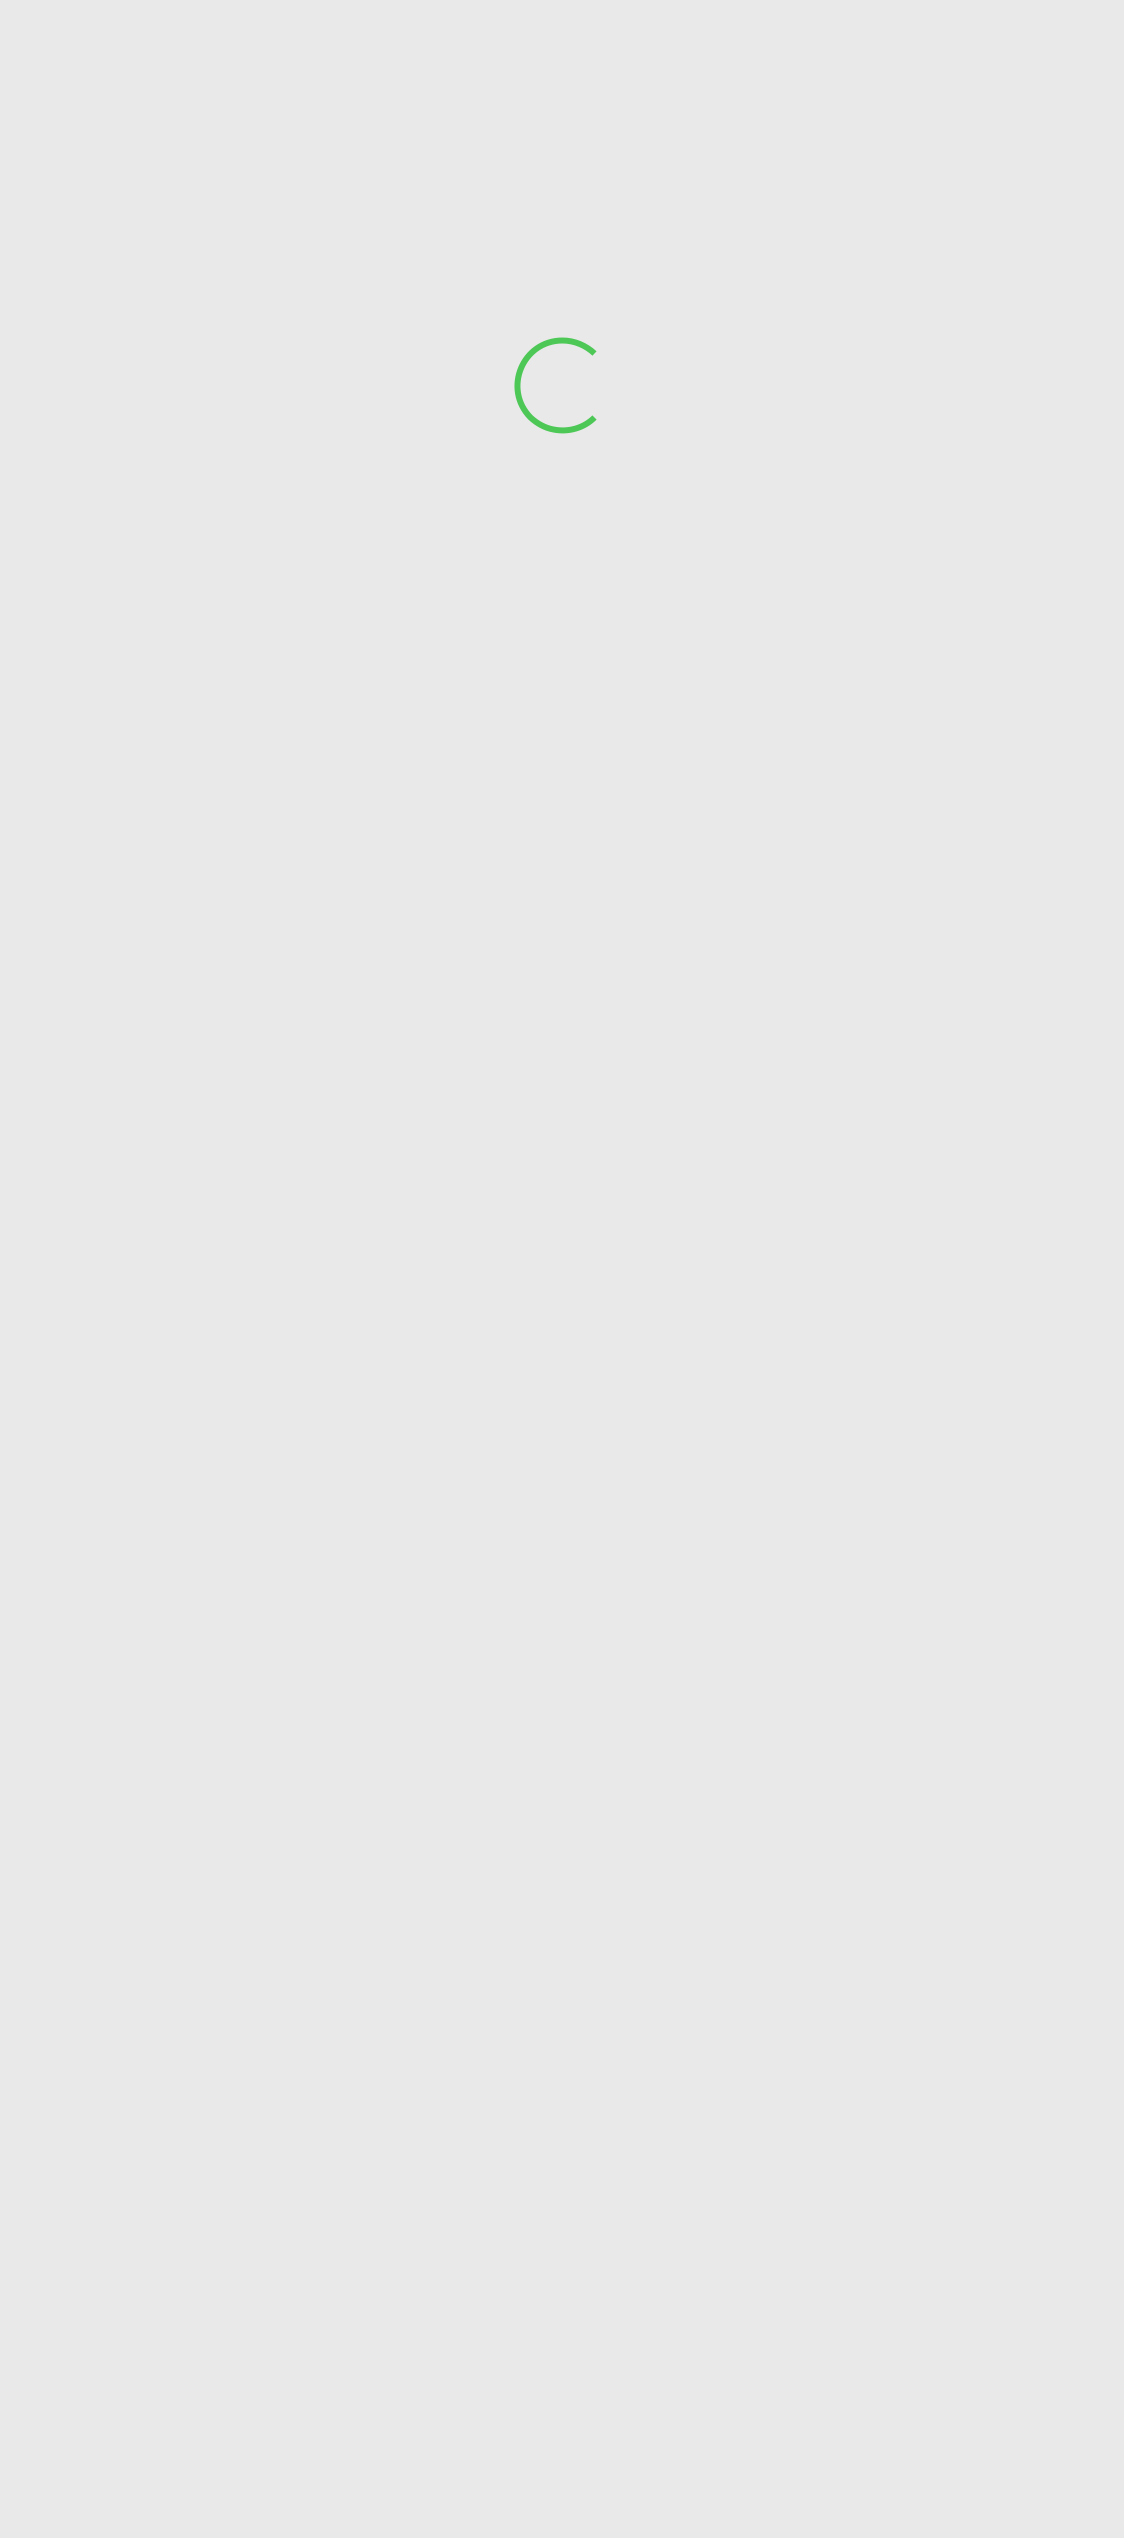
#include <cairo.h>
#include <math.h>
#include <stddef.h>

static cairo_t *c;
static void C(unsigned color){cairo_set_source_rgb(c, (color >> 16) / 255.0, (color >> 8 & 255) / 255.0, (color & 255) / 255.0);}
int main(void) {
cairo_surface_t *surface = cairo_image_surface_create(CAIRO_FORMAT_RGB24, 1124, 2538);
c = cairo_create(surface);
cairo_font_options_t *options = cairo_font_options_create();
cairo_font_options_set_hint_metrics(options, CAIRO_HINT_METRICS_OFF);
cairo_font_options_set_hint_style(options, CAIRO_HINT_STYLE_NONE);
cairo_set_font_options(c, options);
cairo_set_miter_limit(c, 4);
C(0xe9e9e9);
cairo_paint(c);
cairo_new_path(c);
cairo_move_to(c,594.5,417.5);
cairo_curve_to(c,584,428,568.5,432.5,553.5,429.5);
cairo_curve_to(c,545,428,537,423.5,530.5,417.5);
cairo_curve_to(c,502.5,389,522.5,340.5,562.5,340.5);
cairo_curve_to(c,574.5,340.5,586,345.5,594.5,353.5);
C(0x4dc856);
cairo_set_line_width(c,6);
cairo_stroke(c);
cairo_surface_write_to_png(surface, "o.png");
cairo_font_options_destroy(options);
cairo_destroy(c);
cairo_surface_destroy(surface);
return 0;
}
